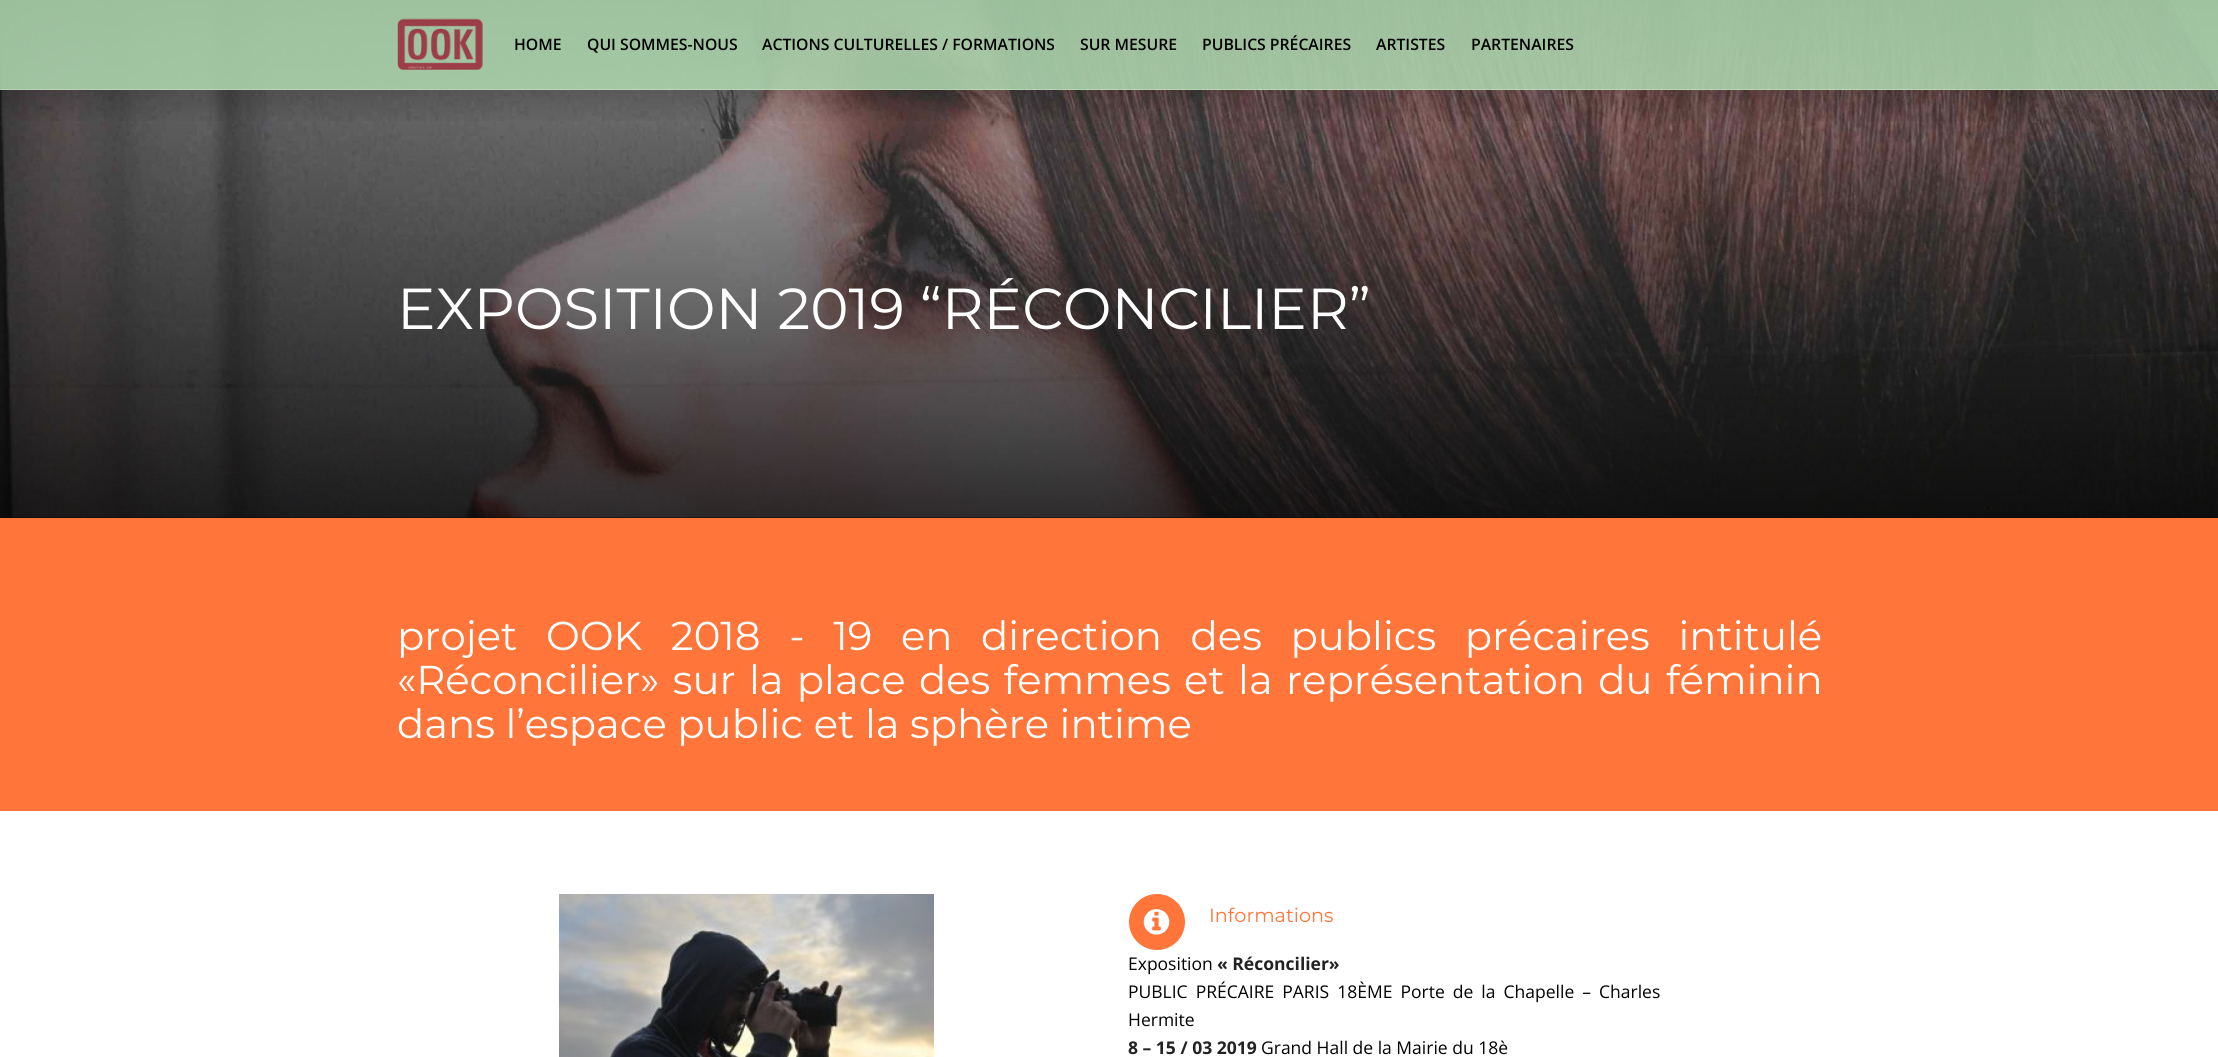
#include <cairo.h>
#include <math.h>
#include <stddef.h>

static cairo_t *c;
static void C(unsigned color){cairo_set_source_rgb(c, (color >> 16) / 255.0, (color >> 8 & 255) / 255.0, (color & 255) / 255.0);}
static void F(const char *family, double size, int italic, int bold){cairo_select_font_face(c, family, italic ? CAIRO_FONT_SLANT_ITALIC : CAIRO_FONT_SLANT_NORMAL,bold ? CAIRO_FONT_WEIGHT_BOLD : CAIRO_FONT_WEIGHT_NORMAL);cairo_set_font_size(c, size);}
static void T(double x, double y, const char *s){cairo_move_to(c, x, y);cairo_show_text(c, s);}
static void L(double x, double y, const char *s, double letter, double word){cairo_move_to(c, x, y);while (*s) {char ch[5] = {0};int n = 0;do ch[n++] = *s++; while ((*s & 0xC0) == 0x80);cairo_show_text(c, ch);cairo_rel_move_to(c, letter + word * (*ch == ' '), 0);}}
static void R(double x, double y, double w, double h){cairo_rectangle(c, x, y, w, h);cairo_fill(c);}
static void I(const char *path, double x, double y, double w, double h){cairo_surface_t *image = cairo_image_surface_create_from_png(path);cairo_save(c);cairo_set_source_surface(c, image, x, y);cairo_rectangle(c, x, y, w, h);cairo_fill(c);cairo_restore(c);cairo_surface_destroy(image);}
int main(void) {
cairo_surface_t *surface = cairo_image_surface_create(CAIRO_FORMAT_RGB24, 2218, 1057);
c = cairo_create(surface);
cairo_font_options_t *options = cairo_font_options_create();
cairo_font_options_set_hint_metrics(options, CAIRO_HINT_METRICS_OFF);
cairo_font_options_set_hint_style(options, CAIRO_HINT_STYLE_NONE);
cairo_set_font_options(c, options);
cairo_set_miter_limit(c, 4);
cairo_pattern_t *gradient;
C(0xffffff);
cairo_paint(c);
C(0x222222);
R(0,517,2218,1);
I("2.png",0,0,2218,518);
gradient = cairo_pattern_create_linear(1109,0,1109,673);
cairo_pattern_add_color_stop_rgba(gradient,0,0,0,0,0);
cairo_pattern_add_color_stop_rgba(gradient,1,0,0,0,1);
cairo_set_source(c,gradient);
cairo_pattern_destroy(gradient);
R(0,15,2218,503);
gradient = cairo_pattern_create_linear(1109,125,1109,-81);
cairo_pattern_add_color_stop_rgba(gradient,0,0,0,0,0);
cairo_pattern_add_color_stop_rgba(gradient,1,0,0,0,1);
cairo_set_source(c,gradient);
cairo_pattern_destroy(gradient);
R(0,0,2218,121);
cairo_set_source_rgba(c,0.686,0.843,0.686,0.87);
R(0,0,2218,90);
cairo_set_source_rgba(c,1,1,1,0.25);
R(0,89,2218,1);
I("1.png",397,18,86,52);
F("Open Sans SemiBold",15.75,0,0);
C(0x000000);
T(514,50,"HOME");
T(587,50,"QUI SOMMES-NOUS");
T(762,50,"ACTIONS CULTURELLES / FORMATIONS");
T(1080,50,"SUR MESURE");
T(1202,50,"PUBLICS PRÉCAIRES");
T(1376,50,"ARTISTES");
T(1471,50,"PARTENAIRES");
F("Montserrat",57.75,0,0);
C(0xffffff);
T(397,329,"EXPOSITION 2019 “RÉCONCILIER”");
C(0xff753a);
R(0,518,2218,293);
F("Montserrat",40.25,0,0);
C(0xffffff);
L(397,650,"projet OOK 2018 - 19 en direction des publics précaires intitulé",0,18.1);
L(397,694,"«Réconcilier» sur la place des femmes et la représentation du féminin",0,2.75);
T(397,738,"dans l’espace public et la sphère intime");
I("3.png",559,894,375,163);
C(0xff753a);
cairo_arc(c,1157,922,28,0,2 * M_PI);
cairo_fill(c);
I("4.png",1143,909,27,26);
F("Montserrat",19.25,0,0);
T(1209,922,"Informations");
F("Open Sans",17.5,0,0);
C(0x000000);
T(1128,970,"Exposition");
F("Open Sans",17.5,0,1);
C(0x222222);
T(1217,970,"« Réconcilier»");
F("Open Sans",17.5,0,0);
C(0x000000);
L(1128,998,"PUBLIC PRÉCAIRE PARIS 18ÈME Porte de la Chapelle – Charles",0,3.5);
T(1128,1026,"Hermite");
F("Open Sans",17.5,0,1);
C(0x222222);
T(1128,1054,"8 – 15 / 03 2019");
F("Open Sans",17.5,0,0);
C(0x000000);
T(1261,1054,"Grand Hall de la Mairie du 18è");
cairo_surface_write_to_png(surface, "o.png");
cairo_font_options_destroy(options);
cairo_destroy(c);
cairo_surface_destroy(surface);
return 0;
}
